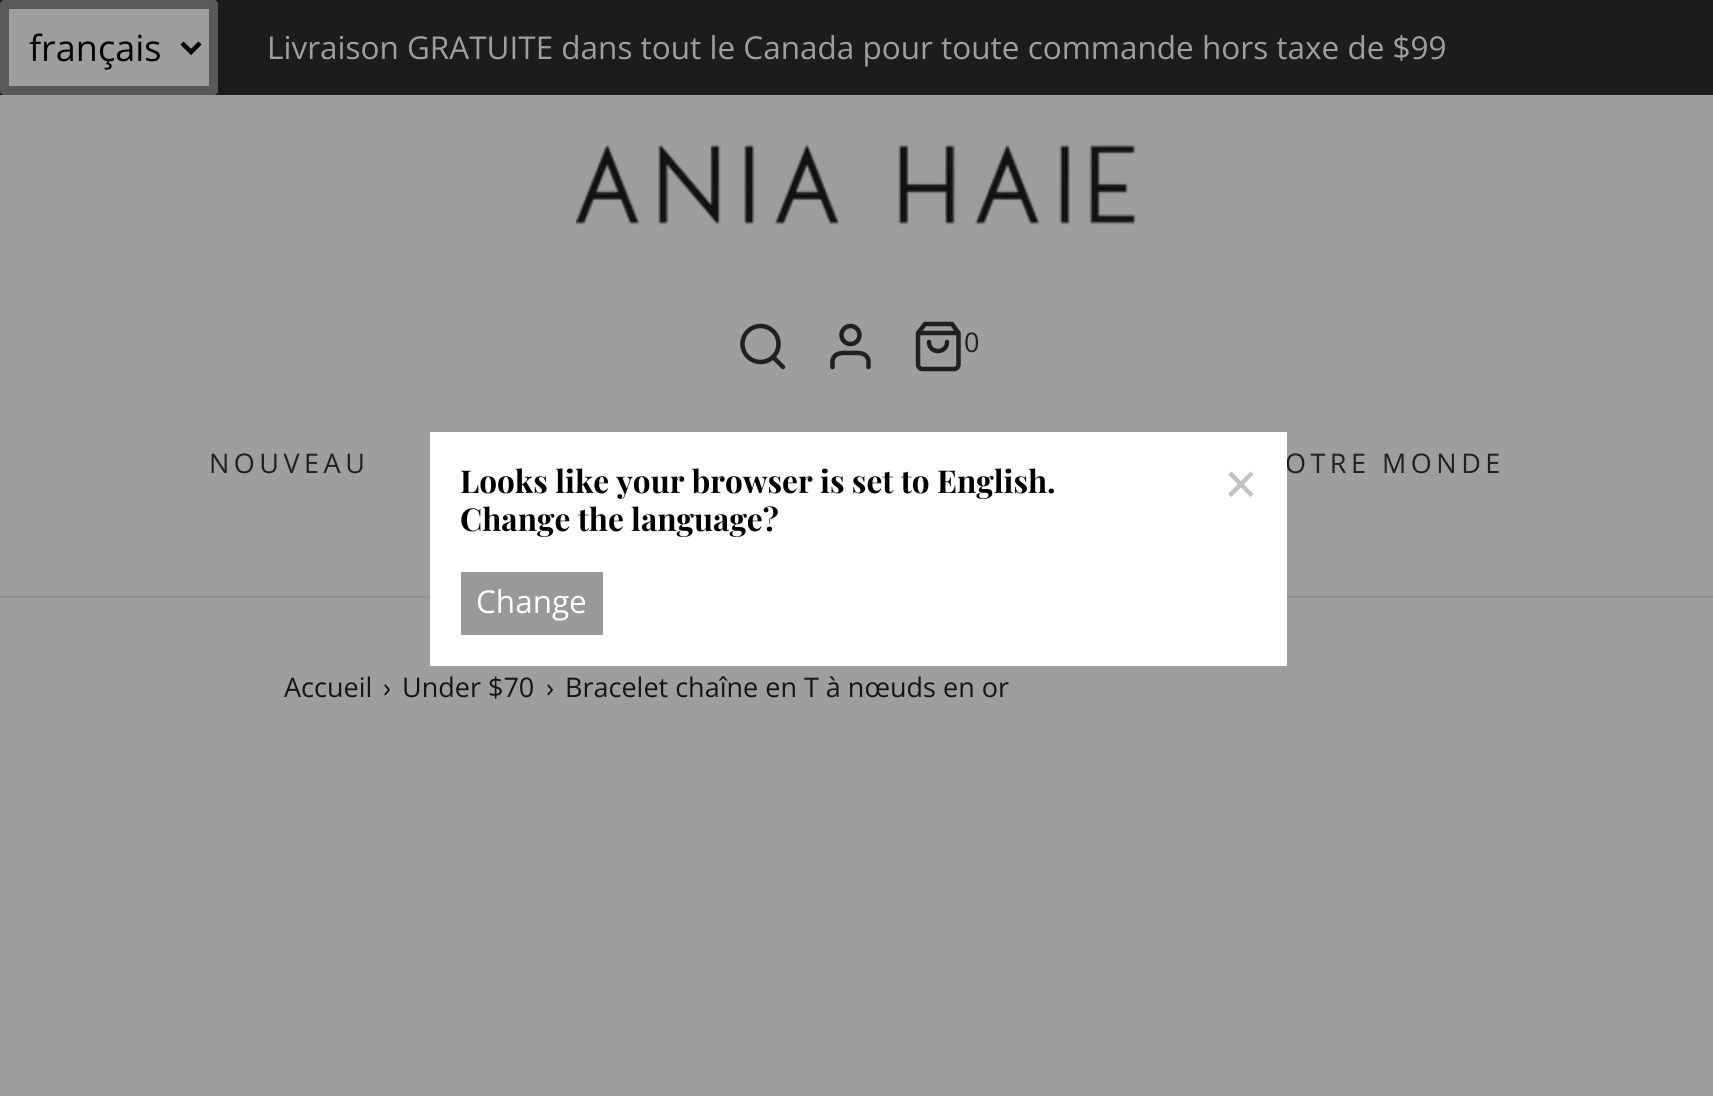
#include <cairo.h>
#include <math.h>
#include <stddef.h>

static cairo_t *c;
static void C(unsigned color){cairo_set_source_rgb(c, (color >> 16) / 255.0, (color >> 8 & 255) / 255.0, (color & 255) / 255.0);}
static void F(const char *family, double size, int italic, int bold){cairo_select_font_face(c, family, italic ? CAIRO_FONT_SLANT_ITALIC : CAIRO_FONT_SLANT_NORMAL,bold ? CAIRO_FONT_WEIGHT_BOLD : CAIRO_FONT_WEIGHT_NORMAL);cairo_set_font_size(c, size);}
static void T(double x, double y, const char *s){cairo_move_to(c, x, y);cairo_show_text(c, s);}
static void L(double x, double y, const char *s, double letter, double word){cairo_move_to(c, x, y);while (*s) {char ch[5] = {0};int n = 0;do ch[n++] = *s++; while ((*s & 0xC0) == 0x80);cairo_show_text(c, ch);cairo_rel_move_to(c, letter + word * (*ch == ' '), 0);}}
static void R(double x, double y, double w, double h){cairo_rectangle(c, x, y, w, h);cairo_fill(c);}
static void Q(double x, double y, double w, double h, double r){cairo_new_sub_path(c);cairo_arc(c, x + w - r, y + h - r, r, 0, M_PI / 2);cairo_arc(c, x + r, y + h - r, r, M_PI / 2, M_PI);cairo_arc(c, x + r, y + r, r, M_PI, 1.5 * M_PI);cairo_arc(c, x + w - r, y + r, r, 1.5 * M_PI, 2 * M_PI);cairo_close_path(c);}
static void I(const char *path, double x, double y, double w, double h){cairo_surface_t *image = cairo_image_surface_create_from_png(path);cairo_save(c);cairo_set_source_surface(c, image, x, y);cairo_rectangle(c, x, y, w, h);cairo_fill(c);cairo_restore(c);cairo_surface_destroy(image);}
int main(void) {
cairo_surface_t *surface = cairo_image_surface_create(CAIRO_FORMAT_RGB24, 1713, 1096);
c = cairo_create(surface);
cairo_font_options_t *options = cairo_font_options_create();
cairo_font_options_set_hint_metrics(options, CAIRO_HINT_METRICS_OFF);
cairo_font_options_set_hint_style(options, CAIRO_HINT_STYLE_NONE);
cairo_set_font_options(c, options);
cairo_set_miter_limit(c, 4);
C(0x9e9e9e);
cairo_paint(c);
C(0x1c1c1c);
R(0,0,1713,95);
C(0x9e9e9e);
Q(0,0,218,95,5);
cairo_fill(c);
Q(4.5,4.5,209,86,.5);
cairo_set_source_rgba(c,0.082,0.082,0.082,0.5);
cairo_set_line_width(c,9);
cairo_stroke(c);
cairo_new_path(c);
cairo_move_to(c,182,43);
cairo_line_to(c,191,52);
cairo_line_to(c,200,43);
C(0x000000);
cairo_set_line_width(c,4.5);
cairo_stroke(c);
F("Open Sans",36,0,0);
T(29,61,"français");
F("Open Sans",31.5,0,0);
C(0x9e9e9e);
T(267,59,"Livraison GRATUITE dans tout le Canada pour toute commande hors taxe de $99");
C(0x929292);
R(0,596,1713,2);
I("1.png",576,144,560,81);
cairo_arc(c,760.5,344,18,0,2 * M_PI);
C(0x202020);
cairo_stroke(c);
cairo_new_path(c);
cairo_move_to(c,783,367);
cairo_line_to(c,773,357);
cairo_set_line_cap(c,CAIRO_LINE_CAP_ROUND);
cairo_set_line_join(c,CAIRO_LINE_JOIN_ROUND);
cairo_stroke(c);
cairo_new_path(c);
cairo_move_to(c,868.5,367);
cairo_line_to(c,868.5,360.5);
cairo_curve_to(c,866.5,351.5,857,353,850.5,353);
cairo_curve_to(c,844,353,834.5,351.5,832.5,360.5);
cairo_line_to(c,832.5,367);
cairo_stroke(c);
cairo_arc(c,850.5,335,9,0,2 * M_PI);
cairo_set_line_cap(c,CAIRO_LINE_CAP_BUTT);
cairo_set_line_join(c,CAIRO_LINE_JOIN_MITER);
cairo_stroke(c);
cairo_new_path(c);
cairo_move_to(c,925,324);
cairo_line_to(c,918,333);
cairo_line_to(c,918,364.5);
cairo_curve_to(c,918,367,920,369,922.5,369);
cairo_line_to(c,954,369);
cairo_curve_to(c,956.5,369,958.5,367,958.5,364.5);
cairo_line_to(c,958.5,333);
cairo_line_to(c,952,324);
cairo_close_path(c);
cairo_move_to(c,918,333);
cairo_line_to(c,958.5,333);
cairo_move_to(c,947,342);
cairo_curve_to(c,947,354,929,354,929,342);
cairo_set_line_cap(c,CAIRO_LINE_CAP_ROUND);
cairo_set_line_join(c,CAIRO_LINE_JOIN_ROUND);
cairo_stroke(c);
F("Open Sans",27,0,0);
T(964,352,"0");
L(209,473,"NOUVEAU",4.5,0);
L(1285,473,"OTRE MONDE",4.5,0);
C(0x151515);
T(284,697,"Accueil");
T(383,697,"›");
T(402,697,"Under $70");
T(546,697,"›");
T(565,697,"Bracelet chaîne en T à nœuds en or");
C(0xffffff);
R(430,432,857,234);
F("Playfair Display",31.5,0,1);
C(0x000000);
T(460,493,"Looks like your browser is set to English.");
T(460,531,"Change the language?");
C(0xc2c2c2);
cairo_new_path(c);
cairo_move_to(c,1250.5,471.5);
cairo_line_to(c,1253.5,474.5);
cairo_line_to(c,1231.5,497);
cairo_line_to(c,1228,494);
cairo_close_path(c);
cairo_fill(c);
cairo_new_path(c);
cairo_move_to(c,1228,474.5);
cairo_line_to(c,1231.5,471.5);
cairo_line_to(c,1253.5,494);
cairo_line_to(c,1250.5,497);
cairo_close_path(c);
cairo_fill(c);
C(0x999999);
R(461,572,142,63);
F("Open Sans",31.5,0,0);
C(0xffffff);
T(476,613,"Change");
cairo_surface_write_to_png(surface, "o.png");
cairo_font_options_destroy(options);
cairo_destroy(c);
cairo_surface_destroy(surface);
return 0;
}
